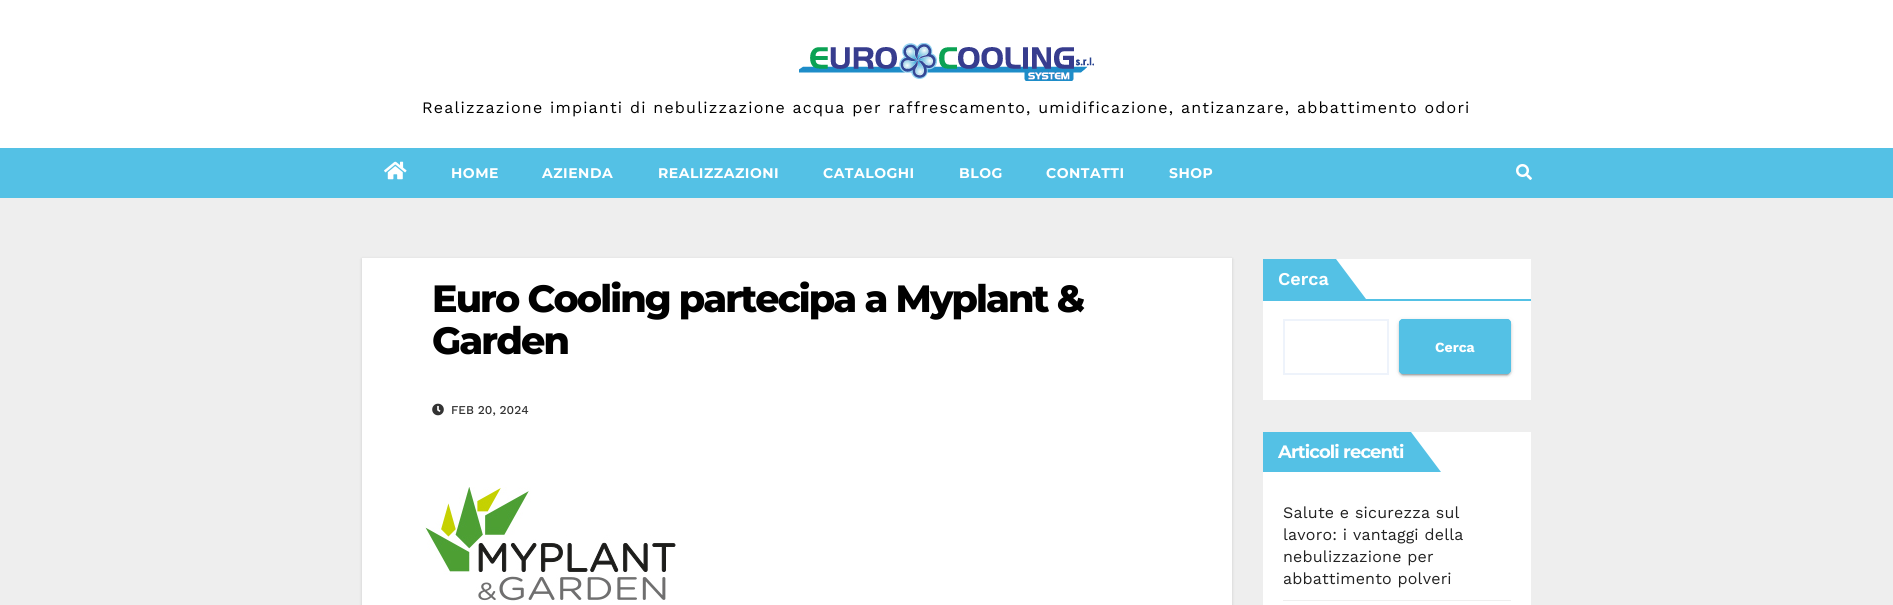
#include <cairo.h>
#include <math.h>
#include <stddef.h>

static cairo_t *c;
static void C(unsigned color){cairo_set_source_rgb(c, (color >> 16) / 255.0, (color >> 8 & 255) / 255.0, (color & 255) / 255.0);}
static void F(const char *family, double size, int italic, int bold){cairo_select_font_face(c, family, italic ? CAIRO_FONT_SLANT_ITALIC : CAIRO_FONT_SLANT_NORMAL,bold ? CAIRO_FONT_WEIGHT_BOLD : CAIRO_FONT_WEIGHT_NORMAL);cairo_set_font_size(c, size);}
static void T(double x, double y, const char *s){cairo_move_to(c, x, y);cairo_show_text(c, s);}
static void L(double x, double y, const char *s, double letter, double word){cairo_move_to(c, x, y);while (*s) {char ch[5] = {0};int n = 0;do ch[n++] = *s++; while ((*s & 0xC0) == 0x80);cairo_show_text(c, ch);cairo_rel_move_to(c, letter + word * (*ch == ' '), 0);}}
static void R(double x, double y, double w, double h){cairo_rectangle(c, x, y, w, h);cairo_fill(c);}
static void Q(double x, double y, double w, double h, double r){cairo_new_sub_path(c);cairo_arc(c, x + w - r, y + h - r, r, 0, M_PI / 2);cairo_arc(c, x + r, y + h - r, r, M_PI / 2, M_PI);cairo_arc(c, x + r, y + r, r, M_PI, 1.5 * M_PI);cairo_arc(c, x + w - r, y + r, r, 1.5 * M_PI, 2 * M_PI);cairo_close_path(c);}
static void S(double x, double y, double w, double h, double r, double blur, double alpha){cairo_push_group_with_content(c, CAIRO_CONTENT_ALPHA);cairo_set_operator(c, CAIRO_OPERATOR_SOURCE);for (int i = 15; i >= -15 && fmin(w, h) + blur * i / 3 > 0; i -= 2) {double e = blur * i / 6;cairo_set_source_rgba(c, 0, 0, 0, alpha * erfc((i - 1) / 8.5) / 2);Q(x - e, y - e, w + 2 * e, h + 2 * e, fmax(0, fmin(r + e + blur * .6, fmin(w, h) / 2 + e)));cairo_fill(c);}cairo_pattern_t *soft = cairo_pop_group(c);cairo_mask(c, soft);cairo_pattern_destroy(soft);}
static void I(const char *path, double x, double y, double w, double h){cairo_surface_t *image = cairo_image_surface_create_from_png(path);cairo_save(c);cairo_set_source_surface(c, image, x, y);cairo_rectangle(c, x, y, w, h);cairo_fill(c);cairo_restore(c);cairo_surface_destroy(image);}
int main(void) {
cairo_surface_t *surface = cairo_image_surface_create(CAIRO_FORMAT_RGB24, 1893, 605);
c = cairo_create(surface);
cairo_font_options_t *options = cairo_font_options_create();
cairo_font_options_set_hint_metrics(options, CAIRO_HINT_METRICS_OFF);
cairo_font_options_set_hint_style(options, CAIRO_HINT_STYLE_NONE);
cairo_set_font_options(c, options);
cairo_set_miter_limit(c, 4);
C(0xeeeeee);
cairo_paint(c);
C(0xffffff);
R(0,0,1893,148);
I("1.png",799,43,295,38);
F("Work Sans",16,0,0);
C(0x000000);
L(422,113,"Realizzazione impianti di nebulizzazione acqua per raffrescamento, umidificazione, antizanzare, abbattimento odori",1.2,0);
C(0x54c1e5);
R(0,148,1893,50);
I("2.png",384,161,23,19);
F("Montserrat",14,0,1);
C(0xffffff);
L(451,178,"HOME",.5,0);
L(542,178,"AZIENDA",.5,0);
L(658,178,"REALIZZAZIONI",.5,0);
L(823,178,"CATALOGHI",.5,0);
L(959,178,"BLOG",.5,0);
L(1046,178,"CONTATTI",.5,0);
L(1169,178,"SHOP",.5,0);
I("3.png",1516,164,16,16);
C(0x000000);
S(362,259,870,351,0,1.5,.15);
C(0xffffff);
R(362,258,870,347);
F("Montserrat ExtraBold",38,0,0);
C(0x000000);
L(432,312,"Euro Cooling partecipa a Myplant &",-1.9,0);
L(432,354,"Garden",-1.9,0);
I("4.png",432,403,12,13);
F("Work Sans Medium",12,0,0);
C(0x333333);
T(451,414,"FEB 20, 2024");
I("5.png",425,487,251,114);
C(0xffffff);
R(1263,259,268,141);
C(0x54c1e5);
R(1263,259,73,40);
F("Work Sans SemiBold",18,0,0);
C(0xffffff);
T(1278,285,"Cerca");
C(0x54c1e5);
cairo_new_path(c);
cairo_move_to(c,1336,299);
cairo_line_to(c,1336,259);
cairo_line_to(c,1366,299);
cairo_close_path(c);
cairo_fill(c);
R(1263,299,268,2);
cairo_rectangle(c,1284,320,104,54);
C(0xeef3fb);
cairo_stroke(c);
C(0x000000);
S(1399,320,112,55,4,2.5,.12);
S(1401,324,108,51,2,.5,.2);
S(1399,321,112,55,4,1,.14);
C(0x54c1e5);
Q(1399,319,112,55,4);
cairo_fill(c);
cairo_set_fill_rule(c,CAIRO_FILL_RULE_EVEN_ODD);
cairo_new_path(c);
cairo_move_to(c,1403,319);
cairo_line_to(c,1507,319);
cairo_curve_to(c,1509,319,1511,321,1511,323);
cairo_line_to(c,1511,370);
cairo_curve_to(c,1511,372,1509,374,1507,374);
cairo_line_to(c,1403,374);
cairo_curve_to(c,1401,374,1399,372,1399,370);
cairo_line_to(c,1399,323);
cairo_curve_to(c,1399,321,1401,319,1403,319);
cairo_close_path(c);
cairo_move_to(c,1403,320);
cairo_line_to(c,1507,320);
cairo_curve_to(c,1509,320,1510,321,1510,323);
cairo_line_to(c,1510,370);
cairo_curve_to(c,1510,372,1509,374,1507,374);
cairo_line_to(c,1403,374);
cairo_curve_to(c,1401,374,1400,372,1400,370);
cairo_line_to(c,1400,323);
cairo_curve_to(c,1400,321,1401,320,1403,320);
cairo_close_path(c);
cairo_fill(c);
F("Work Sans",14,0,1);
C(0xffffff);
T(1435,352,"Cerca");
R(1263,432,268,173);
C(0x54c1e5);
R(1263,432,148,40);
F("Montserrat",18,0,1);
C(0xffffff);
L(1278,458,"Articoli recenti",-.9,0);
C(0x54c1e5);
cairo_set_fill_rule(c,CAIRO_FILL_RULE_WINDING);
cairo_new_path(c);
cairo_move_to(c,1411,472);
cairo_line_to(c,1411,432);
cairo_line_to(c,1441,472);
cairo_close_path(c);
cairo_fill(c);
C(0xeeeeee);
R(1283,600,228,1);
F("Work Sans",16,0,0);
C(0x222222);
L(1283,518,"Salute e sicurezza sul",.2,0);
L(1283,540,"lavoro: i vantaggi della",.2,0);
L(1283,562,"nebulizzazione per",.2,0);
L(1283,584,"abbattimento polveri",.2,0);
cairo_surface_write_to_png(surface, "o.png");
cairo_font_options_destroy(options);
cairo_destroy(c);
cairo_surface_destroy(surface);
return 0;
}
